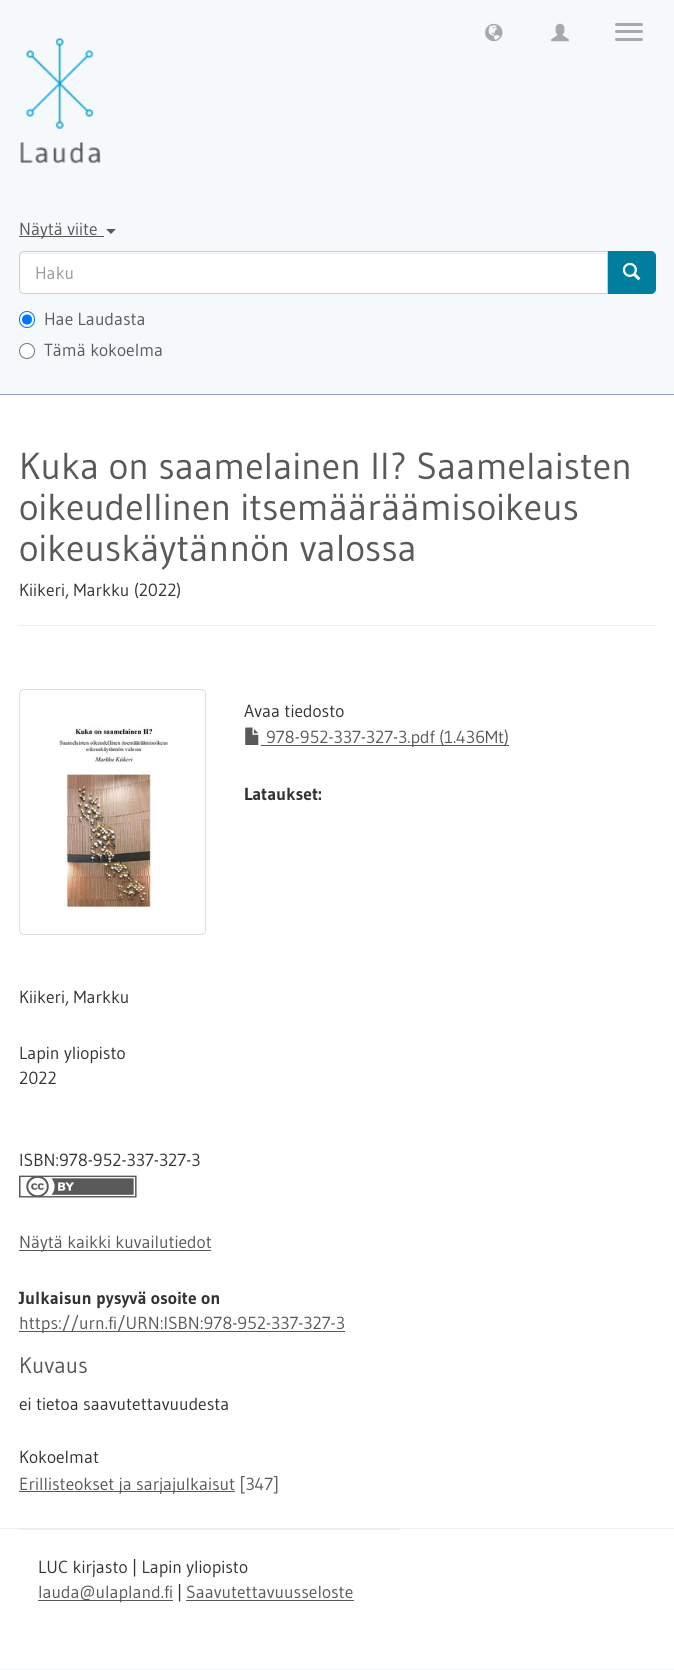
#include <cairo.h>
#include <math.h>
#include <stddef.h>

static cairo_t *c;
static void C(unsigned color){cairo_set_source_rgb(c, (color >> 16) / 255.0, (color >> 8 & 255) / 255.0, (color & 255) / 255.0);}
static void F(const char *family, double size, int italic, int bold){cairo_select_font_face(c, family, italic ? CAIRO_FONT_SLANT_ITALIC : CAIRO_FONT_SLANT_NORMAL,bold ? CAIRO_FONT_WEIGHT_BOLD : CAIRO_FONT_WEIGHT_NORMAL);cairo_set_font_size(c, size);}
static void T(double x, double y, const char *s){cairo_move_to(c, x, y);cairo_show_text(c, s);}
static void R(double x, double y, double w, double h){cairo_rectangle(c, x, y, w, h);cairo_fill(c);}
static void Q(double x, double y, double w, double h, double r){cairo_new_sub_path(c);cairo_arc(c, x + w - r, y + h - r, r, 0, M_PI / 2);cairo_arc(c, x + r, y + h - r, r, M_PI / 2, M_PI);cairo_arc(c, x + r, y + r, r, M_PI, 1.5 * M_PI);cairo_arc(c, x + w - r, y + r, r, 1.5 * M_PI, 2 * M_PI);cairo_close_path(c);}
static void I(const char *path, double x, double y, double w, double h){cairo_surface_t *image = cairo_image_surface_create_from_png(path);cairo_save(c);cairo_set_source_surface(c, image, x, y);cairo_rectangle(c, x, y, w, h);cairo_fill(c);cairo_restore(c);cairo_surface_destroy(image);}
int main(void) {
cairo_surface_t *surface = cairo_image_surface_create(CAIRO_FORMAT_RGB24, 674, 1670);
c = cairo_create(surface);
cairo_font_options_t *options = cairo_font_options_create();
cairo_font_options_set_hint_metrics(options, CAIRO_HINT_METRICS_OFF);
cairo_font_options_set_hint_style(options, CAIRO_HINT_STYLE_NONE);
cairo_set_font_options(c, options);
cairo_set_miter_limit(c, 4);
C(0xf6f9fc);
cairo_paint(c);
I("1.png",485,23,18,19);
I("2.png",551,23,18,19);
C(0xa8a9ab);
Q(615,23,28,3,1.5);
cairo_fill(c);
Q(615,30,28,3,1.5);
cairo_fill(c);
Q(615,38,28,3,1.5);
cairo_fill(c);
I("3.png",20,37,81,127);
C(0x8b9eb2);
R(0,394,674,1);
C(0x595959);
R(19,236,85,1);
F("Gudea",17.5,0,0);
T(19,235,"Näytä viite");
cairo_new_path(c);
cairo_move_to(c,106,229);
cairo_line_to(c,116,229);
cairo_line_to(c,111,234);
cairo_close_path(c);
cairo_fill(c);
C(0x007e9e);
cairo_new_path(c);
cairo_move_to(c,606.5,251.5);
cairo_line_to(c,651,251.5);
cairo_curve_to(c,653.5,251.5,655.5,253.5,655.5,256);
cairo_line_to(c,655.5,289);
cairo_curve_to(c,655.5,291.5,653.5,293.5,651,293.5);
cairo_line_to(c,606.5,293.5);
cairo_close_path(c);
cairo_fill_preserve(c);
cairo_set_line_width(c,1);
cairo_stroke(c);
C(0xffffff);
cairo_new_path(c);
cairo_move_to(c,24,251);
cairo_line_to(c,608,251);
cairo_line_to(c,608,294);
cairo_line_to(c,24,294);
cairo_curve_to(c,21,294,19,292,19,289);
cairo_line_to(c,19,256);
cairo_curve_to(c,19,253,21,251,24,251);
cairo_close_path(c);
cairo_fill(c);
C(0xececec);
cairo_new_path(c);
cairo_move_to(c,24,254);
cairo_line_to(c,606,254);
cairo_line_to(c,606,253);
cairo_line_to(c,24,253);
cairo_curve_to(c,21,253,20,255,20,258);
cairo_curve_to(c,20,255,22,254,24,254);
cairo_close_path(c);
cairo_fill(c);
cairo_new_path(c);
cairo_move_to(c,24,251.5);
cairo_line_to(c,607.5,251.5);
cairo_line_to(c,607.5,293.5);
cairo_line_to(c,24,293.5);
cairo_curve_to(c,21.5,293.5,19.5,291.5,19.5,289);
cairo_line_to(c,19.5,256);
cairo_curve_to(c,19.5,253.5,21.5,251.5,24,251.5);
cairo_close_path(c);
C(0xcccccc);
cairo_stroke(c);
C(0x999999);
T(35,279,"Haku");
I("4.png",622,262,19,19);
C(0xffffff);
Q(19.5,311.5,15,16,7.5);
cairo_fill_preserve(c);
C(0x0075ff);
cairo_stroke(c);
cairo_arc(c,27,319.5,5,0,2 * M_PI);
cairo_fill(c);
C(0x595959);
T(44,325,"Hae Laudasta");
C(0xffffff);
cairo_new_path(c);
cairo_arc(c,27,351,7.5,0,2 * M_PI);
cairo_fill_preserve(c);
C(0x767676);
cairo_stroke(c);
C(0x595959);
T(44,356,"Tämä kokoelma");
C(0xffffff);
R(0,395,674,1273);
F("Gudea",37.5,0,0);
C(0x595959);
T(19,479,"Kuka on saamelainen II? Saamelaisten");
T(19,520,"oikeudellinen itsemääräämisoikeus");
T(19,561,"oikeuskäytännön valossa");
F("Gudea",17.5,0,0);
C(0x333333);
T(19,596,"Kiikeri, Markku (2022)");
C(0xeeeeee);
R(19,625,637,1);
Q(19.5,689.5,186,245,4.5);
C(0xdddddd);
cairo_stroke(c);
I("5.png",59,726,110,181);
C(0x333333);
T(244,717,"Avaa tiedosto");
I("6.png",245,727,14,18);
C(0x595959);
R(261,745,248,1);
T(266,743,"978-952-337-327-3.pdf (1.436Mt)");
F("Gudea",17.5,0,1);
C(0x333333);
T(244,800,"Lataukset:");
F("Gudea",17.5,0,0);
T(19,1003,"Kiikeri, Markku");
T(19,1059,"Lapin yliopisto");
T(19,1084,"2022");
T(19,1166,"ISBN:978-952-337-327-3");
F("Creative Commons",26.25,0,0);
C(0x595959);
T(19,1198,"2");
R(19,1250,192,1);
F("Gudea",17.5,0,0);
T(19,1248,"Näytä kaikki kuvailutiedot");
F("Gudea",17.5,0,1);
C(0x333333);
T(19,1304,"Julkaisun pysyvä osoite on");
C(0x595959);
R(19,1331,326,1);
F("Gudea",17.5,0,0);
T(19,1329,"https://urn.fi/URN:ISBN:978-952-337-327-3");
F("Gudea",22.5,0,0);
T(19,1373,"Kuvaus");
F("Gudea",17.5,0,0);
C(0x333333);
T(19,1410,"ei tietoa saavutettavuudesta");
T(19,1463,"Kokoelmat");
C(0x595959);
R(19,1491,216,1);
T(19,1490,"Erillisteokset ja sarjajulkaisut [347]");
C(0xeeeeee);
R(0,1528,674,1);
R(19,1529,382,1);
C(0x333333);
T(38,1573,"LUC kirjasto | Lapin yliopisto");
C(0x595959);
R(38,1600,135,1);
T(38,1598,"lauda@ulapland.fi");
C(0x333333);
T(177,1598,"|");
C(0x595959);
T(186,1598,"Saavutettavuusseloste");
R(186,1600,168,1);
cairo_surface_write_to_png(surface, "o.png");
cairo_font_options_destroy(options);
cairo_destroy(c);
cairo_surface_destroy(surface);
return 0;
}
